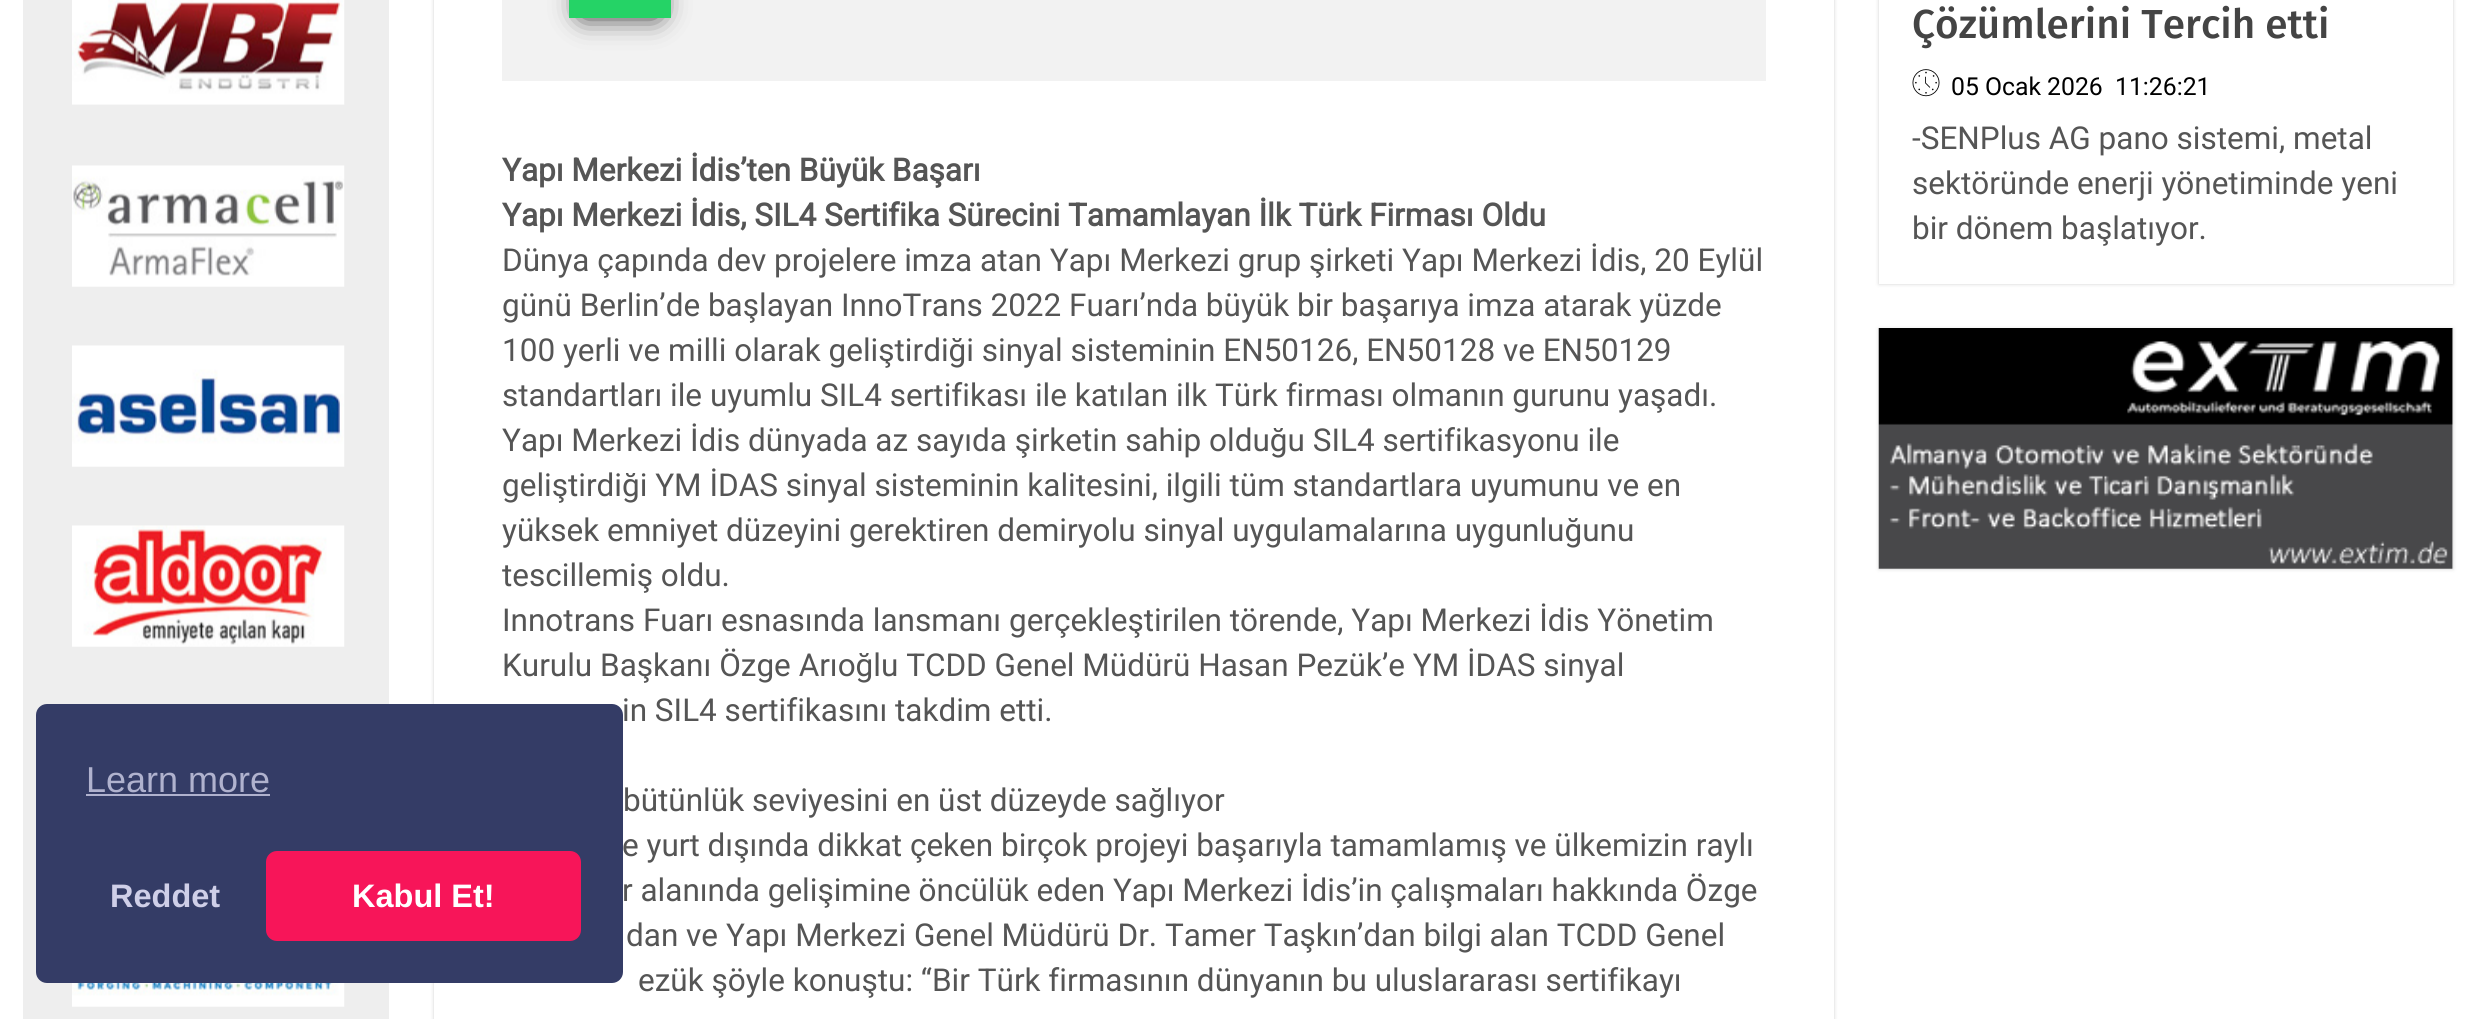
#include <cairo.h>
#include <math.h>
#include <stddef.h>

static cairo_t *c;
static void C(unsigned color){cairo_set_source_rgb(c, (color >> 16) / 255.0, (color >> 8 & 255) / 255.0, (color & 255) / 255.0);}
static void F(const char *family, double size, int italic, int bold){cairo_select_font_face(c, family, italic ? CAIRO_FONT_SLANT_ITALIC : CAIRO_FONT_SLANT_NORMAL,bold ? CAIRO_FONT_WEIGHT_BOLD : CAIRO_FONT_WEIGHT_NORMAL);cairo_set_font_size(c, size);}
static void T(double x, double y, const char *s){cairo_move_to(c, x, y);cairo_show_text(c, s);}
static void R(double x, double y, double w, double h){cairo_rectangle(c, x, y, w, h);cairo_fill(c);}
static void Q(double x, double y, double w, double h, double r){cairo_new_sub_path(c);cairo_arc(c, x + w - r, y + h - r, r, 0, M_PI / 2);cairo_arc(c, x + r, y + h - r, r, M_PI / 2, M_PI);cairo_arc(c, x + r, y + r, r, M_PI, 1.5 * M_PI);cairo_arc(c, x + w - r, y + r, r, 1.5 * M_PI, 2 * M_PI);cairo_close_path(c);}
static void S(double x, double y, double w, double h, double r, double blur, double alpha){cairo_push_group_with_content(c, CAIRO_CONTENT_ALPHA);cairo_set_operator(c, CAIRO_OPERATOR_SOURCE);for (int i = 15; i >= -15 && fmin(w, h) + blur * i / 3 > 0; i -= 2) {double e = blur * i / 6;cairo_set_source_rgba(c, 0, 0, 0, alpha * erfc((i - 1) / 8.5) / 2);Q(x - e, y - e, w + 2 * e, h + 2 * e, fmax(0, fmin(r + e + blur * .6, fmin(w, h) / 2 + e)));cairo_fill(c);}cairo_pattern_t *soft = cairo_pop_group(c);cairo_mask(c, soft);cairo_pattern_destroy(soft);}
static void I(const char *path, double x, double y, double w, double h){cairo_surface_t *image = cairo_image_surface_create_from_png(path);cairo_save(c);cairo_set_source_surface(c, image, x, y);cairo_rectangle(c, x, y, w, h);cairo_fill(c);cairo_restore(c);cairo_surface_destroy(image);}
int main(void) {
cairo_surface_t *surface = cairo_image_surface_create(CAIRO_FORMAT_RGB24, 2475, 1019);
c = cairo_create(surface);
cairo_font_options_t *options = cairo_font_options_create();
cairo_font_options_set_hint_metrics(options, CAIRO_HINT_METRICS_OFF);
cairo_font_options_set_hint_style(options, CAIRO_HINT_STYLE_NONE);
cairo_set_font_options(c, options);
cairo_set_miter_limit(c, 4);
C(0xffffff);
cairo_paint(c);
C(0xeeeeee);
R(23,0,366,1019);
C(0x000000);
S(434,-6,1400,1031,0,2,.18);
C(0xffffff);
R(434,0,1400,1019);
C(0x343c66);
Q(36,704,587,279,11);
cairo_fill(c);
F("Liberation Sans",36,0,0);
C(0xb0b2ce);
T(86,792,"Learn more");
R(86,794,184,2);
F("Liberation Sans",32.5,0,1);
C(0xcfcfe8);
T(110,907,"Reddet");
C(0xf71559);
Q(266,851,315,90,11);
cairo_fill(c);
C(0xffffff);
T(352,907,"Kabul Et!");
I("1.png",72,0,273,105);
I("2.png",72,165,273,122);
I("3.png",72,345,273,122);
I("4.png",72,525,273,122);
I("5.png",72,983,273,24);
C(0x000000);
S(1879,-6,574,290,0,2,.18);
C(0xffffff);
R(1879,0,574,284);
F("Fira Sans Medium",40.5,0,0);
C(0x444444);
T(1912,38,"Çözümlerini Tercih etti");
I("6.png",1912,69,28,28);
F("Roboto",24.75,0,0);
C(0x000000);
T(1951,95,"05 Ocak 2026");
T(2115,95,"11:26:21");
F("Roboto",31.5,0,0);
C(0x555555);
T(1912,149,"-SENPlus AG pano sistemi, metal");
T(1912,194,"sektöründe enerji yönetiminde yeni");
T(1912,239,"bir dönem başlatıyor.");
C(0x000000);
S(1879,329,574,240,0,2,.18);
C(0xffffff);
R(1879,329,574,240);
I("7.png",1878,328,575,241);
C(0xf2f2f2);
R(502,0,1264,81);
C(0x000000);
S(583,-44,74,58,0,14.5,1);
C(0x25d366);
R(569,0,102,18);
F("Roboto",31.5,0,1);
C(0x555555);
T(502,181,"Yapı Merkezi İdis’ten Büyük Başarı");
T(502,226,"Yapı Merkezi İdis, SIL4 Sertifika Sürecini Tamamlayan İlk Türk Firması Oldu");
F("Roboto",31.5,0,0);
T(502,271,"Dünya çapında dev projelere imza atan Yapı Merkezi grup şirketi Yapı Merkezi İdis, 20 Eylül");
T(502,316,"günü Berlin’de başlayan InnoTrans 2022 Fuarı’nda büyük bir başarıya imza atarak yüzde");
T(502,361,"100 yerli ve milli olarak geliştirdiği sinyal sisteminin EN50126, EN50128 ve EN50129");
T(502,406,"standartları ile uyumlu SIL4 sertifikası ile katılan ilk Türk firması olmanın gurunu yaşadı.");
T(502,451,"Yapı Merkezi İdis dünyada az sayıda şirketin sahip olduğu SIL4 sertifikasyonu ile");
T(502,496,"geliştirdiği YM İDAS sinyal sisteminin kalitesini, ilgili tüm standartlara uyumunu ve en");
T(502,541,"yüksek emniyet düzeyini gerektiren demiryolu sinyal uygulamalarına uygunluğunu");
T(502,586,"tescillemiş oldu.");
T(502,631,"Innotrans Fuarı esnasında lansmanı gerçekleştirilen törende, Yapı Merkezi İdis Yönetim");
T(502,676,"Kurulu Başkanı Özge Arıoğlu TCDD Genel Müdürü Hasan Pezük’e YM İDAS sinyal");
T(622,721,"in SIL4 sertifikasını takdim etti.");
T(623,811,"bütünlük seviyesini en üst düzeyde sağlıyor");
T(622,856,"e yurt dışında dikkat çeken birçok projeyi başarıyla tamamlamış ve ülkemizin raylı");
T(622,901,"r alanında gelişimine öncülük eden Yapı Merkezi İdis’in çalışmaları hakkında Özge");
T(626,946,"dan ve Yapı Merkezi Genel Müdürü Dr. Tamer Taşkın’dan bilgi alan TCDD Genel");
T(638,991,"ezük şöyle konuştu: “Bir Türk firmasının dünyanın bu uluslararası sertifikayı");
cairo_surface_write_to_png(surface, "o.png");
cairo_font_options_destroy(options);
cairo_destroy(c);
cairo_surface_destroy(surface);
return 0;
}
